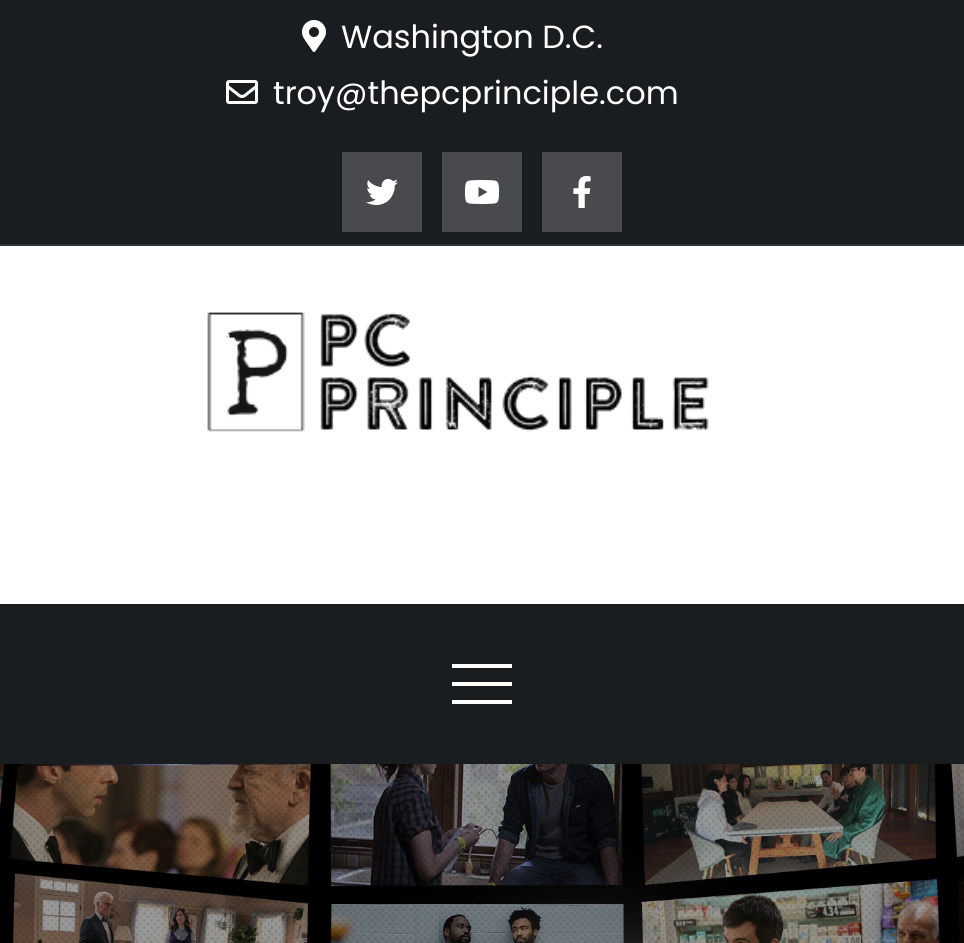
#include <cairo.h>
#include <math.h>
#include <stddef.h>

static cairo_t *c;
static void C(unsigned color){cairo_set_source_rgb(c, (color >> 16) / 255.0, (color >> 8 & 255) / 255.0, (color & 255) / 255.0);}
static void F(const char *family, double size, int italic, int bold){cairo_select_font_face(c, family, italic ? CAIRO_FONT_SLANT_ITALIC : CAIRO_FONT_SLANT_NORMAL,bold ? CAIRO_FONT_WEIGHT_BOLD : CAIRO_FONT_WEIGHT_NORMAL);cairo_set_font_size(c, size);}
static void T(double x, double y, const char *s){cairo_move_to(c, x, y);cairo_show_text(c, s);}
static void R(double x, double y, double w, double h){cairo_rectangle(c, x, y, w, h);cairo_fill(c);}
static void I(const char *path, double x, double y, double w, double h){cairo_surface_t *image = cairo_image_surface_create_from_png(path);cairo_save(c);cairo_set_source_surface(c, image, x, y);cairo_rectangle(c, x, y, w, h);cairo_fill(c);cairo_restore(c);cairo_surface_destroy(image);}
int main(void) {
cairo_surface_t *surface = cairo_image_surface_create(CAIRO_FORMAT_RGB24, 964, 943);
c = cairo_create(surface);
cairo_font_options_t *options = cairo_font_options_create();
cairo_font_options_set_hint_metrics(options, CAIRO_HINT_METRICS_OFF);
cairo_font_options_set_hint_style(options, CAIRO_HINT_STYLE_NONE);
cairo_set_font_options(c, options);
cairo_set_miter_limit(c, 4);
C(0xffffff);
cairo_paint(c);
C(0x1a1d20);
R(0,0,964,244);
C(0x313436);
R(0,244,964,2);
I("1.png",302,20,24,32);
F("Poppins",32,0,0);
C(0xffffff);
T(341,48,"Washington D.C.");
I("2.png",226,80,32,24);
T(273,104,"troy@thepcprinciple.com");
C(0x484a4d);
R(342,152,80,80);
I("3.png",366,179,32,26);
R(442,152,80,80);
I("4.png",464,180,36,24);
R(542,152,80,80);
I("5.png",573,176,18,32);
I("6.png",207,312,502,120);
C(0x1a1d20);
R(0,604,964,160);
C(0xffffff);
R(452,664,60,4);
R(452,682,60,4);
R(452,700,60,4);
I("7.png",0,764,964,179);
cairo_surface_write_to_png(surface, "o.png");
cairo_font_options_destroy(options);
cairo_destroy(c);
cairo_surface_destroy(surface);
return 0;
}
